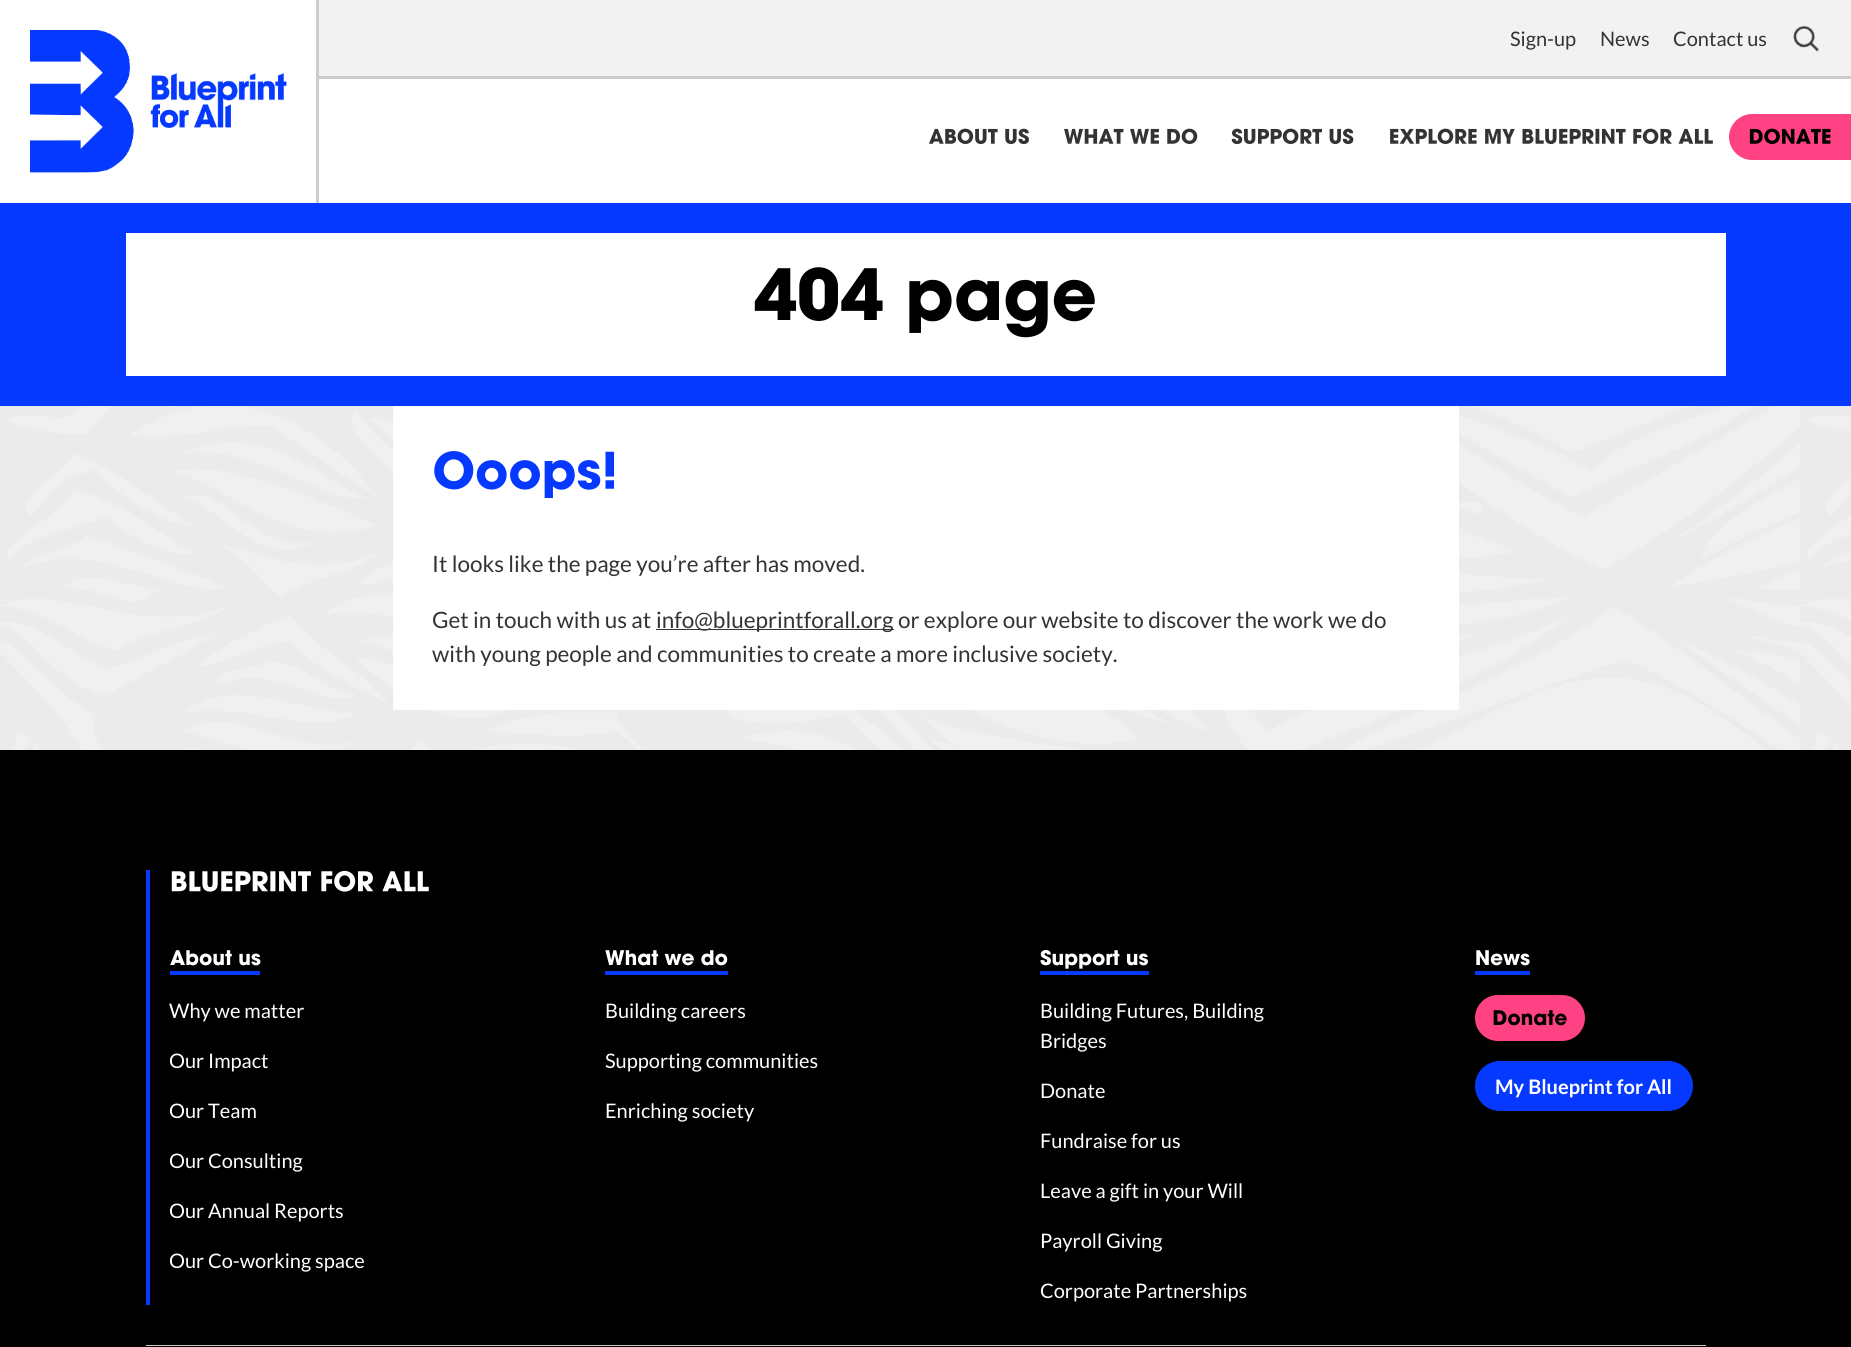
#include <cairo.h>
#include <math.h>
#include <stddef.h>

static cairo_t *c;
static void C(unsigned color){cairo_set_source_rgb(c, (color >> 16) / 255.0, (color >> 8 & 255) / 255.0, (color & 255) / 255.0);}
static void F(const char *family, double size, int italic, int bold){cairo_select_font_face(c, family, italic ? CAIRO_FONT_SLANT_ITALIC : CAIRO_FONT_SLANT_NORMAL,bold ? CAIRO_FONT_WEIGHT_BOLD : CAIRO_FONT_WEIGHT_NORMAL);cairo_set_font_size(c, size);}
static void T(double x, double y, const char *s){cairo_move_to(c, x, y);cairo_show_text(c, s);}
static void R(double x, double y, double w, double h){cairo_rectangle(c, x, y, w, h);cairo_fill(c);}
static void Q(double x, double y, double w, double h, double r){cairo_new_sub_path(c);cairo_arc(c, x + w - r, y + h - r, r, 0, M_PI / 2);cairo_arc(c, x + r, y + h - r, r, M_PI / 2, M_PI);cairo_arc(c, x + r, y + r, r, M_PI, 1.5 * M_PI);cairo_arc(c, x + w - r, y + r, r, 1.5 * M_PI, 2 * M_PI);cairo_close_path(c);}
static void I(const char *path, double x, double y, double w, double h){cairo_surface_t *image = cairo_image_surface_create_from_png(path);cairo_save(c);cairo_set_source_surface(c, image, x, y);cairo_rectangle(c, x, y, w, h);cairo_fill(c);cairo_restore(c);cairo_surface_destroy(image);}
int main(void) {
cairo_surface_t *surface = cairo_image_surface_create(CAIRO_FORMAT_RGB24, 1851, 1347);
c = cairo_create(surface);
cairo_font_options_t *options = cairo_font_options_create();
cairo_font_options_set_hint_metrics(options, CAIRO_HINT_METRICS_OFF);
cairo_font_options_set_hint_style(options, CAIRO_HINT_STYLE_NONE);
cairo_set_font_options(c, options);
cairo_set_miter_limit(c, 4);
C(0xf2f2f2);
cairo_paint(c);
C(0xffffff);
R(319,79,1532,124);
R(0,0,316,203);
C(0xcccccc);
R(316,0,3,203);
I("1.png",30,30,257,143);
R(319,76,1532,3);
F("Lato",20,0,0);
C(0x333333);
T(1510,46,"Sign-up");
T(1600,46,"News");
T(1673,46,"Contact us");
I("2.png",1793,25,27,27);
I("3.png",929,128,100,16);
I("4.png",1064,128,134,16);
I("5.png",1231,128,123,16);
I("6.png",1390,128,323,16);
C(0xff4283);
cairo_new_path(c);
cairo_move_to(c,1752,114);
cairo_line_to(c,1851,114);
cairo_line_to(c,1851,160);
cairo_line_to(c,1752,160);
cairo_curve_to(c,1739.5,160,1729,149.5,1729,137);
cairo_curve_to(c,1729,124.5,1739.5,114,1752,114);
cairo_close_path(c);
cairo_fill(c);
I("7.png",1749,128,82,16);
I("8.png",0,406,1851,344);
C(0x0639ff);
R(0,203,1851,203);
C(0xffffff);
R(126,233,1600,143);
I("9.png",754,267,341,71);
R(393,406,1066,304);
I("10.png",434,451,181,47);
F("Lato",22.5,0,0);
C(0x333333);
T(432,572,"It looks like the page you’re after has moved.");
T(432,628,"Get in touch with us at");
R(656,629,238,1);
T(656,628,"info@blueprintforall.org or explore our website to discover the work we do");
T(432,662,"with young people and communities to create a more inclusive society.");
C(0x000000);
R(0,750,1851,597);
C(0x0639ff);
R(146,870,4,435);
I("11.png",171,870,258,22);
I("12.png",170,950,91,16);
R(170,971,90,4);
F("Lato",20,0,0);
C(0xffffff);
T(169,1018,"Why we matter");
T(169,1068,"Our Impact");
T(169,1118,"Our Team");
T(169,1168,"Our Consulting");
T(169,1218,"Our Annual Reports");
T(169,1268,"Our Co-working space");
I("13.png",605,950,123,16);
C(0x0639ff);
R(605,971,123,4);
C(0xffffff);
T(605,1018,"Building careers");
T(605,1068,"Supporting communities");
T(605,1118,"Enriching society");
I("14.png",1040,949,108,20);
C(0x0639ff);
R(1040,971,109,4);
C(0xffffff);
T(1040,1018,"Building Futures, Building");
T(1040,1048,"Bridges");
T(1040,1098,"Donate");
T(1040,1148,"Fundraise for us");
T(1040,1198,"Leave a gift in your Will");
T(1040,1248,"Payroll Giving");
T(1040,1298,"Corporate Partnerships");
I("15.png",1476,950,54,16);
C(0x0639ff);
R(1475,971,55,4);
C(0xff4283);
Q(1475,995,110,46,23);
cairo_fill(c);
I("16.png",1493,1010,74,16);
C(0x0639ff);
Q(1475,1061,218,50,25);
cairo_fill(c);
F("Lato",20,0,1);
C(0xffffff);
T(1495,1094,"My Blueprint for All");
C(0xcccccc);
R(146,1345,1560,1);
cairo_surface_write_to_png(surface, "o.png");
cairo_font_options_destroy(options);
cairo_destroy(c);
cairo_surface_destroy(surface);
return 0;
}
